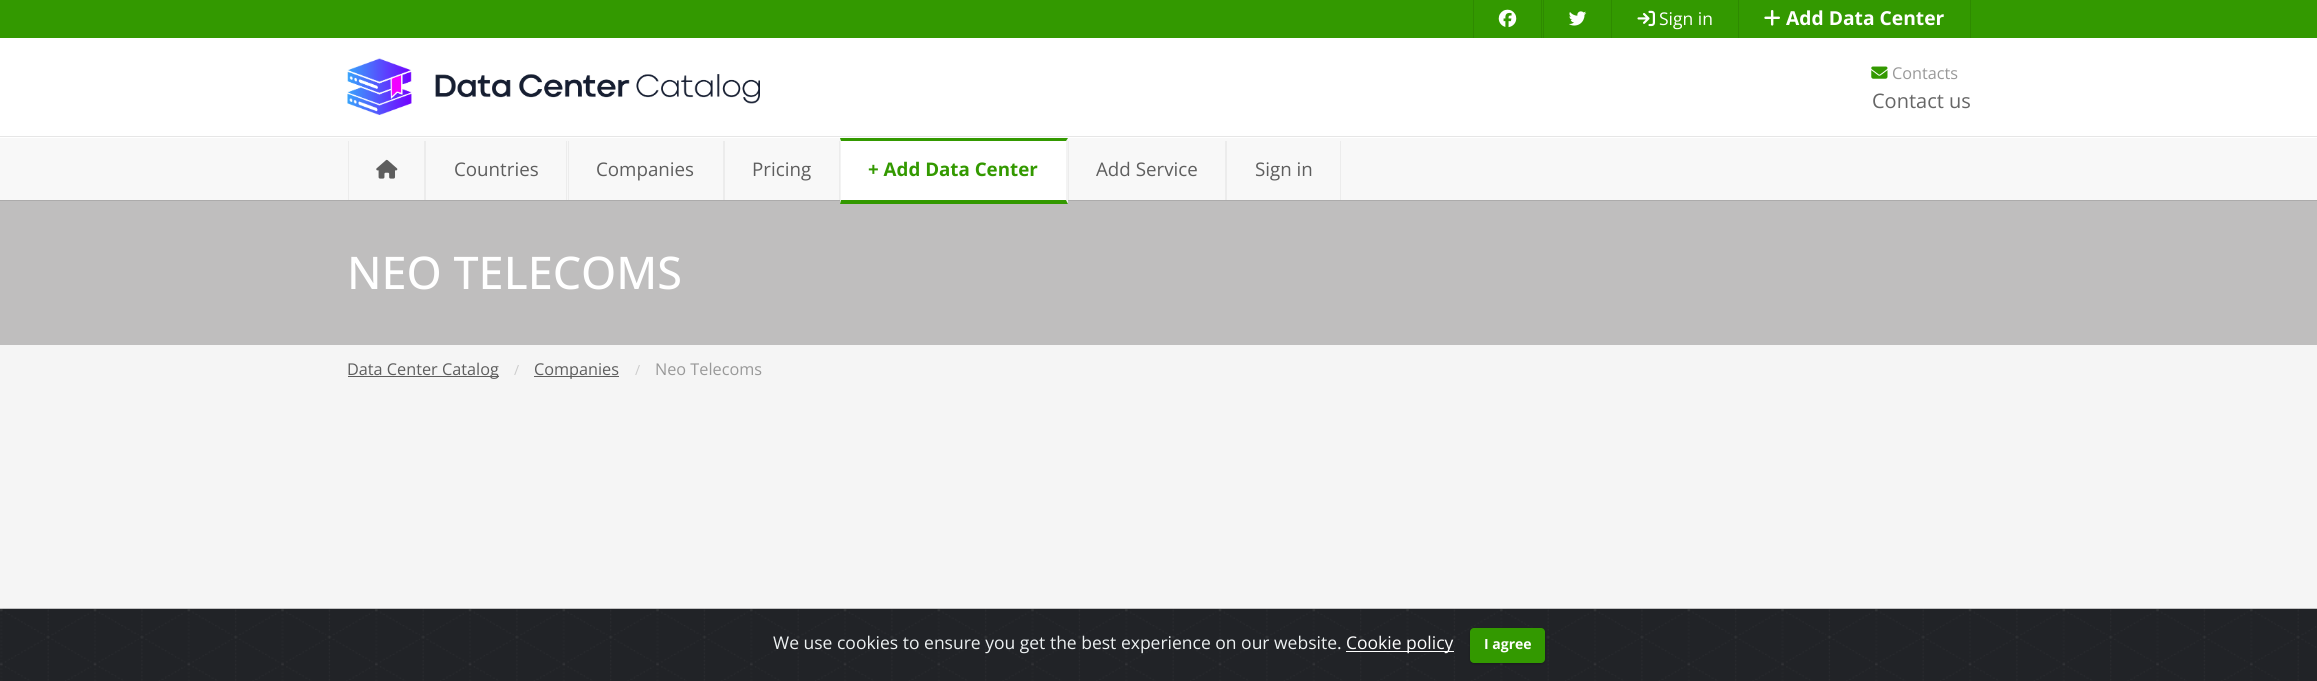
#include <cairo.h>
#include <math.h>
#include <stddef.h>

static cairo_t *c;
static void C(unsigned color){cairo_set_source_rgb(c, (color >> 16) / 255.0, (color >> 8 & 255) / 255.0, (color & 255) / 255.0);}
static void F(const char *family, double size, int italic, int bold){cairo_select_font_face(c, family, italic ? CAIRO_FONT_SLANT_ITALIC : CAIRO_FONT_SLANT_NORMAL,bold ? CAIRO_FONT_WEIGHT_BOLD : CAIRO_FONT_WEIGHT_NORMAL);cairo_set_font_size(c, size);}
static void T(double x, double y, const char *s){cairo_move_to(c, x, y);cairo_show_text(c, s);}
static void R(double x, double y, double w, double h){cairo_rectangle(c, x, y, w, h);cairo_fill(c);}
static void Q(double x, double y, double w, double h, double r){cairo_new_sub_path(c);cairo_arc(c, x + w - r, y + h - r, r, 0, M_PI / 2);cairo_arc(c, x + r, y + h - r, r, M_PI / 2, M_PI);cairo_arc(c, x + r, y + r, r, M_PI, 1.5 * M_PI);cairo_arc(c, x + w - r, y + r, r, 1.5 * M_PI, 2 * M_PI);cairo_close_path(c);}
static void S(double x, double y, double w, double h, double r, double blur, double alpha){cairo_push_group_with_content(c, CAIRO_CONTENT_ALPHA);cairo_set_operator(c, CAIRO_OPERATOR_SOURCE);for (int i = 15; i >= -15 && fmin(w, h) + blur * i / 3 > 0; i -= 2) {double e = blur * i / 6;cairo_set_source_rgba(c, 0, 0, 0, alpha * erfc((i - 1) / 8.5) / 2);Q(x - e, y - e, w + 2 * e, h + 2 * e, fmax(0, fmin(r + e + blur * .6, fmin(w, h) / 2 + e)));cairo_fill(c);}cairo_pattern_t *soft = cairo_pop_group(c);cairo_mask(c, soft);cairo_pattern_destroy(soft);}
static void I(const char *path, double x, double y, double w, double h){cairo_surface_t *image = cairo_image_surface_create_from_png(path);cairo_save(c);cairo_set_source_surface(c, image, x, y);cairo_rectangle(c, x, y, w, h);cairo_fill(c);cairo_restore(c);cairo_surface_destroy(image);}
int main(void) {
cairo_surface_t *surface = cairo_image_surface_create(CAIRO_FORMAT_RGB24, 2317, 681);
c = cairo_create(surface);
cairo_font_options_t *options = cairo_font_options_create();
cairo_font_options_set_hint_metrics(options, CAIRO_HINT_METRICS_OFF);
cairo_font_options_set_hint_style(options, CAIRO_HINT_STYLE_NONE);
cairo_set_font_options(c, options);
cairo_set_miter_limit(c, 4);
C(0xffffff);
cairo_paint(c);
C(0x339900);
R(0,0,2317,38);
C(0x2e8a00);
R(1541,0,1,38);
R(1473,0,1,38);
I("1.png",1498,9,19,19);
R(1611,0,1,38);
R(1543,0,1,38);
I("2.png",1569,11,18,15);
R(1738,0,1,38);
I("3.png",1637,10,18,17);
F("Open Sans",17.5,0,0);
C(0xffffff);
T(1659,25,"Sign in");
C(0x2e8a00);
R(1970,0,1,38);
I("4.png",1764,10,16,16);
F("Open Sans",19.25,0,1);
C(0xffffff);
T(1786,25,"Add Data Center");
I("5.png",347,58,413,57);
I("6.png",1871,66,17,13);
F("Open Sans",16.25,0,0);
C(0x999999);
T(1892,79,"Contacts");
F("Open Sans",20,0,0);
C(0x666666);
T(1872,108,"Contact us");
C(0xbfbebe);
R(0,200,2317,145);
cairo_rectangle(c,-.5,136.5,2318,64);
cairo_set_source_rgba(c,0,0,0,0.1);
cairo_set_line_width(c,1);
cairo_stroke(c);
C(0xf8f8f8);
R(0,138,2317,62);
C(0xececec);
R(424,141,2,59);
R(348,141,1,59);
I("7.png",376,159,22,20);
F("Open Sans",18.75,0,0);
C(0x5e5e5e);
T(454,176,"Countries");
C(0xececec);
R(566,141,1,59);
C(0x5e5e5e);
T(596,176,"Companies");
C(0xececec);
R(723,141,2,59);
R(568,141,1,59);
C(0x5e5e5e);
T(752,176,"Pricing");
C(0xececec);
R(839,141,1,59);
C(0xffffff);
R(840,138,228,66);
F("Open Sans",18.75,0,1);
C(0x339900);
T(868,176,"+ Add Data Center");
cairo_new_path(c);
cairo_move_to(c,840,138);
cairo_line_to(c,1068,138);
cairo_line_to(c,1066,141);
cairo_line_to(c,841,141);
cairo_close_path(c);
cairo_fill(c);
cairo_set_source_rgba(c,0,0,0,0.05);
cairo_new_path(c);
cairo_move_to(c,1068,138);
cairo_line_to(c,1068,204);
cairo_line_to(c,1066,200);
cairo_line_to(c,1066,141);
cairo_close_path(c);
cairo_fill(c);
C(0x339900);
cairo_new_path(c);
cairo_move_to(c,1068,204);
cairo_line_to(c,840,204);
cairo_line_to(c,841,200);
cairo_line_to(c,1066,200);
cairo_close_path(c);
cairo_fill(c);
cairo_set_source_rgba(c,0,0,0,0.05);
cairo_new_path(c);
cairo_move_to(c,840,204);
cairo_line_to(c,840,138);
cairo_line_to(c,841,141);
cairo_line_to(c,841,200);
cairo_close_path(c);
cairo_fill(c);
F("Open Sans",18.75,0,0);
C(0x5e5e5e);
T(1096,176,"Add Service");
C(0xececec);
R(1225,141,2,59);
R(1068,141,1,59);
C(0x5e5e5e);
T(1255,176,"Sign in");
C(0xececec);
R(1340,141,1,59);
F("Open Sans Medium",45,0,0);
C(0xffffff);
T(347,289,"NEO TELECOMS");
C(0xf5f5f5);
R(0,345,2317,264);
C(0x5e5e5e);
R(348,376,151,1);
F("Open Sans",16.25,0,0);
T(347,375,"Data Center Catalog");
F("Open Sans",14,0,0);
C(0xcccccc);
T(514,375,"/");
C(0x5e5e5e);
R(534,376,85,1);
F("Open Sans",16.25,0,0);
T(534,375,"Companies");
F("Open Sans",14,0,0);
C(0xcccccc);
T(635,375,"/");
F("Open Sans",16.25,0,0);
C(0x999999);
T(655,375,"Neo Telecoms");
I("8.png",0,608,2317,73);
F("Open Sans",17.5,0,0);
C(0xecf0f1);
T(773,649,"We use cookies to ensure you get the best experience on our website.");
C(0xffffff);
R(1346,651,108,1);
T(1346,649,"Cookie policy");
C(0x000000);
S(1470,629,75,35,4,1,.25);
C(0x339900);
Q(1470,628,75,35,4);
cairo_fill(c);
F("Open Sans",14,0,1);
C(0xffffff);
T(1484,649,"I agree");
cairo_surface_write_to_png(surface, "o.png");
cairo_font_options_destroy(options);
cairo_destroy(c);
cairo_surface_destroy(surface);
return 0;
}
